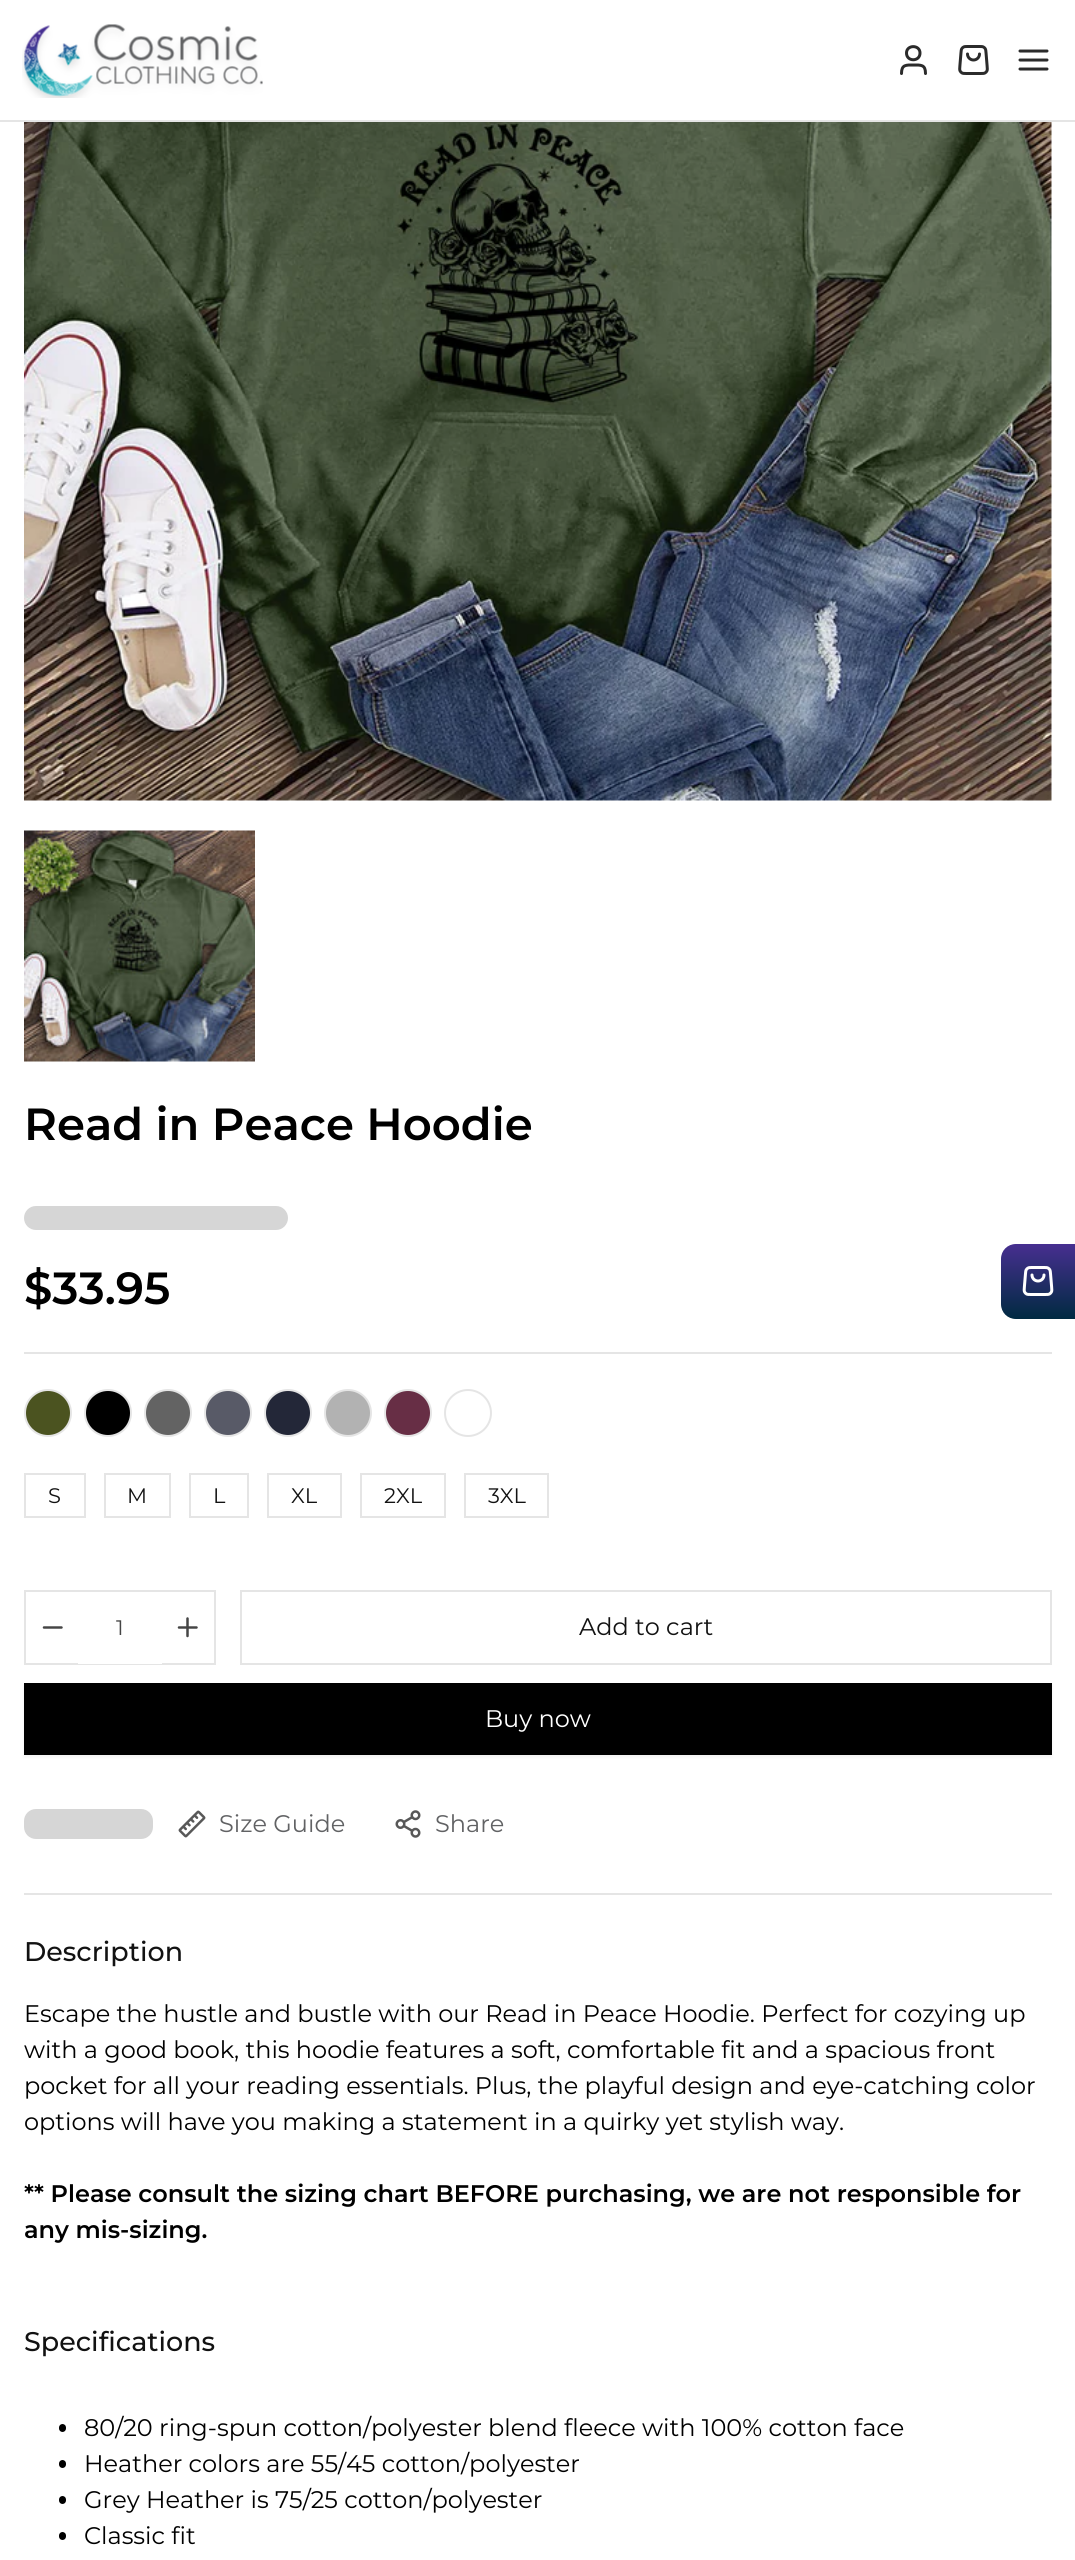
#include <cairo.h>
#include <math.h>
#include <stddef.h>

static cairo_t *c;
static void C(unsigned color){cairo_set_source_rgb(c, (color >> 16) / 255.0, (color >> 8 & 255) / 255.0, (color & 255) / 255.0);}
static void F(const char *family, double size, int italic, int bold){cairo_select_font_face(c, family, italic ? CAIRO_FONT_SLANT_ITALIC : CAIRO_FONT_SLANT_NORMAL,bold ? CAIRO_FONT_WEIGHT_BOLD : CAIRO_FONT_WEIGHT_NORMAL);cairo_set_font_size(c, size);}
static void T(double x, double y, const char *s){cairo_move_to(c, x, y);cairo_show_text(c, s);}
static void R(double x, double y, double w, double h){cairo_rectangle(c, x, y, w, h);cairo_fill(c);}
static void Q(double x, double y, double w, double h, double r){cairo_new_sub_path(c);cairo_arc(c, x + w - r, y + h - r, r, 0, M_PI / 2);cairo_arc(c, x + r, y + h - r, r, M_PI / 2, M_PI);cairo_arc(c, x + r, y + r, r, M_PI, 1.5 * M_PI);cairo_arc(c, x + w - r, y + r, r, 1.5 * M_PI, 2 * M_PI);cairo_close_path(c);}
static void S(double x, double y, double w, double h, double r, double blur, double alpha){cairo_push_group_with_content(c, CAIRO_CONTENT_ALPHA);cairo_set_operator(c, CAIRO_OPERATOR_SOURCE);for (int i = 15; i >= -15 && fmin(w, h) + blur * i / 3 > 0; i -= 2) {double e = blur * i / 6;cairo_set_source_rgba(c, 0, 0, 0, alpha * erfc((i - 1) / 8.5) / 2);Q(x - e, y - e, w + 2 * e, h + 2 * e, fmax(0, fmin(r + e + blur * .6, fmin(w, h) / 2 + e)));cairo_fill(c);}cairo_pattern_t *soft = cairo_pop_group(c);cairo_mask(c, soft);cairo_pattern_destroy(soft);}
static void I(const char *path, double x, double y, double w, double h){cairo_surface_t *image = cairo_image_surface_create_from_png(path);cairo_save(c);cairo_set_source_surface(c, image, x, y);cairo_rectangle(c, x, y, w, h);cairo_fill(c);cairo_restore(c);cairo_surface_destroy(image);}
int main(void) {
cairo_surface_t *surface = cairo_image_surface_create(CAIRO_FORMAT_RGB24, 1075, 2560);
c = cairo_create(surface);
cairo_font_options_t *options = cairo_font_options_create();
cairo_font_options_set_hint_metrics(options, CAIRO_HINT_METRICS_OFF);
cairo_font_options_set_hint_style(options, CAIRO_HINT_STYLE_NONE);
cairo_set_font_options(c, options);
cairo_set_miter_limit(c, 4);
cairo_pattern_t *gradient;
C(0xffffff);
cairo_paint(c);
I("1.png",22,24,241,74);
cairo_new_path(c);
cairo_move_to(c,925.5,73.5);
cairo_curve_to(c,925.5,64.5,921,65,913.5,65);
cairo_curve_to(c,906,65,901.5,64.5,901.5,73.5);
cairo_move_to(c,920,53);
cairo_curve_to(c,920,62,906.5,62,906.5,53);
cairo_curve_to(c,906.5,44.5,920,44.5,920,53);
cairo_close_path(c);
C(0x2b2b2b);
cairo_set_line_width(c,3);
cairo_set_line_cap(c,CAIRO_LINE_CAP_ROUND);
cairo_set_line_join(c,CAIRO_LINE_JOIN_ROUND);
cairo_stroke(c);
I("2.png",958,45,31,30);
cairo_new_path(c);
cairo_move_to(c,1020,60);
cairo_line_to(c,1047,60);
cairo_move_to(c,1020,51);
cairo_line_to(c,1047,51);
cairo_move_to(c,1020,69);
cairo_line_to(c,1047,69);
cairo_stroke(c);
C(0xe5e5e5);
R(0,120,1075,2);
gradient = cairo_pattern_create_linear(1038,1244,1038,1319);
cairo_pattern_add_color_stop_rgba(gradient,0,0.278,0.184,0.565,1);
cairo_pattern_add_color_stop_rgba(gradient,1,0,0.165,0.255,1);
cairo_set_source(c,gradient);
cairo_pattern_destroy(gradient);
cairo_new_path(c);
cairo_move_to(c,1016,1244);
cairo_line_to(c,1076,1244);
cairo_line_to(c,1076,1319);
cairo_line_to(c,1016,1319);
cairo_curve_to(c,1007.5,1319,1001,1312.5,1001,1304);
cairo_line_to(c,1001,1259);
cairo_curve_to(c,1001,1250.5,1007.5,1244,1016,1244);
cairo_close_path(c);
cairo_fill(c);
I("3.png",1022,1266,32,30);
I("4.png",24,122,1028,679);
I("5.png",24,830,231,232);
F("Montserrat SemiBold",45,0,0);
C(0x000000);
T(24,1140,"Read in Peace Hoodie");
C(0xd6d6d6);
Q(24,1206,264,24,12);
cairo_fill(c);
C(0x000000);
T(24,1304,"$33.95");
C(0xe5e5e5);
R(24,1352,1028,2);
C(0x4b5320);
cairo_new_path(c);
cairo_arc(c,48,1413,23,0,2 * M_PI);
cairo_fill_preserve(c);
C(0xe5e5e5);
cairo_set_line_width(c,2);
cairo_set_line_cap(c,CAIRO_LINE_CAP_BUTT);
cairo_set_line_join(c,CAIRO_LINE_JOIN_MITER);
cairo_stroke(c);
C(0x000000);
cairo_arc(c,108,1413,23,0,2 * M_PI);
cairo_fill_preserve(c);
C(0xe5e5e5);
cairo_stroke(c);
C(0x636363);
cairo_arc(c,168,1413,23,0,2 * M_PI);
cairo_fill_preserve(c);
C(0xe5e5e5);
cairo_stroke(c);
C(0x585a67);
cairo_arc(c,228,1413,23,0,2 * M_PI);
cairo_fill_preserve(c);
C(0xe5e5e5);
cairo_stroke(c);
C(0x232738);
cairo_arc(c,288,1413,23,0,2 * M_PI);
cairo_fill_preserve(c);
C(0xe5e5e5);
cairo_stroke(c);
C(0xb2b2b2);
cairo_arc(c,348,1413,23,0,2 * M_PI);
cairo_fill_preserve(c);
C(0xe5e5e5);
cairo_stroke(c);
C(0x672e45);
cairo_arc(c,408,1413,23,0,2 * M_PI);
cairo_fill_preserve(c);
C(0xe5e5e5);
cairo_stroke(c);
cairo_arc(c,468,1413,23,0,2 * M_PI);
cairo_stroke(c);
cairo_rectangle(c,25,1474,60,43);
cairo_stroke(c);
F("Montserrat Thin",21,0,0);
C(0x121212);
T(48,1503,"S");
cairo_rectangle(c,105,1474,65,43);
C(0xe5e5e5);
cairo_stroke(c);
C(0x121212);
T(127,1503,"M");
cairo_rectangle(c,190,1474,58,43);
C(0xe5e5e5);
cairo_stroke(c);
C(0x121212);
T(213,1503,"L");
cairo_rectangle(c,268,1474,73,43);
C(0xe5e5e5);
cairo_stroke(c);
C(0x121212);
T(291,1503,"XL");
cairo_rectangle(c,361,1474,84,43);
C(0xe5e5e5);
cairo_stroke(c);
C(0x121212);
T(384,1503,"2XL");
cairo_rectangle(c,465,1474,83,43);
C(0xe5e5e5);
cairo_stroke(c);
C(0x121212);
T(488,1503,"3XL");
C(0xe5e5e5);
R(24,1893,1028,2);
cairo_rectangle(c,25,1591,190,73);
cairo_stroke(c);
cairo_new_path(c);
cairo_move_to(c,44,1627.5);
cairo_line_to(c,61.5,1627.5);
C(0x454545);
cairo_set_line_width(c,2.5);
cairo_set_line_cap(c,CAIRO_LINE_CAP_ROUND);
cairo_set_line_join(c,CAIRO_LINE_JOIN_ROUND);
cairo_stroke(c);
C(0xffffff);
R(78,1663,84,1);
C(0x454545);
T(116,1635,"1");
cairo_new_path(c);
cairo_move_to(c,187.5,1618.5);
cairo_line_to(c,187.5,1636);
cairo_move_to(c,179,1627.5);
cairo_line_to(c,196.5,1627.5);
cairo_stroke(c);
cairo_rectangle(c,241,1591,810,73);
C(0xe5e5e5);
cairo_set_line_width(c,2);
cairo_set_line_cap(c,CAIRO_LINE_CAP_BUTT);
cairo_set_line_join(c,CAIRO_LINE_JOIN_MITER);
cairo_stroke(c);
F("Montserrat Thin",24,0,0);
C(0x121212);
T(579,1635,"Add to cart");
C(0x000000);
S(24,1685,1028,72,0,1.5,.05);
C(0x000000);
R(24,1683,1028,72);
C(0xffffff);
T(485,1727,"Buy now");
C(0xd6d6d6);
Q(24,1809,129,30,12);
cairo_fill(c);
I("6.png",178,1810,28,28);
C(0x616264);
T(219,1832,"Size Guide");
I("7.png",395,1810,26,28);
T(435,1832,"Share");
F("Montserrat Medium",27,0,0);
C(0x121212);
T(24,1961,"Description");
F("Montserrat Thin",24,0,0);
C(0x000000);
T(24,2022,"Escape the hustle and bustle with our Read in Peace Hoodie. Perfect for cozying up");
T(24,2058,"with a good book, this hoodie features a soft, comfortable fit and a spacious front");
T(24,2094,"pocket for all your reading essentials. Plus, the playful design and eye-catching color");
T(24,2130,"options will have you making a statement in a quirky yet stylish way.");
F("Montserrat SemiBold",24,0,0);
T(24,2202,"** Please consult the sizing chart BEFORE purchasing, we are not responsible for");
T(24,2238,"any mis-sizing.");
F("Montserrat Medium",27,0,0);
C(0x121212);
T(24,2351,"Specifications");
C(0x000000);
Q(59,2424,7,8,3.5);
cairo_fill(c);
F("Montserrat Thin",24,0,0);
T(84,2436,"80/20 ring-spun cotton/polyester blend fleece with 100% cotton face");
Q(59,2460,7,8,3.5);
cairo_fill(c);
T(84,2472,"Heather colors are 55/45 cotton/polyester");
Q(59,2496,7,8,3.5);
cairo_fill(c);
T(84,2508,"Grey Heather is 75/25 cotton/polyester");
Q(59,2532,7,8,3.5);
cairo_fill(c);
T(84,2544,"Classic fit");
cairo_surface_write_to_png(surface, "o.png");
cairo_font_options_destroy(options);
cairo_destroy(c);
cairo_surface_destroy(surface);
return 0;
}
